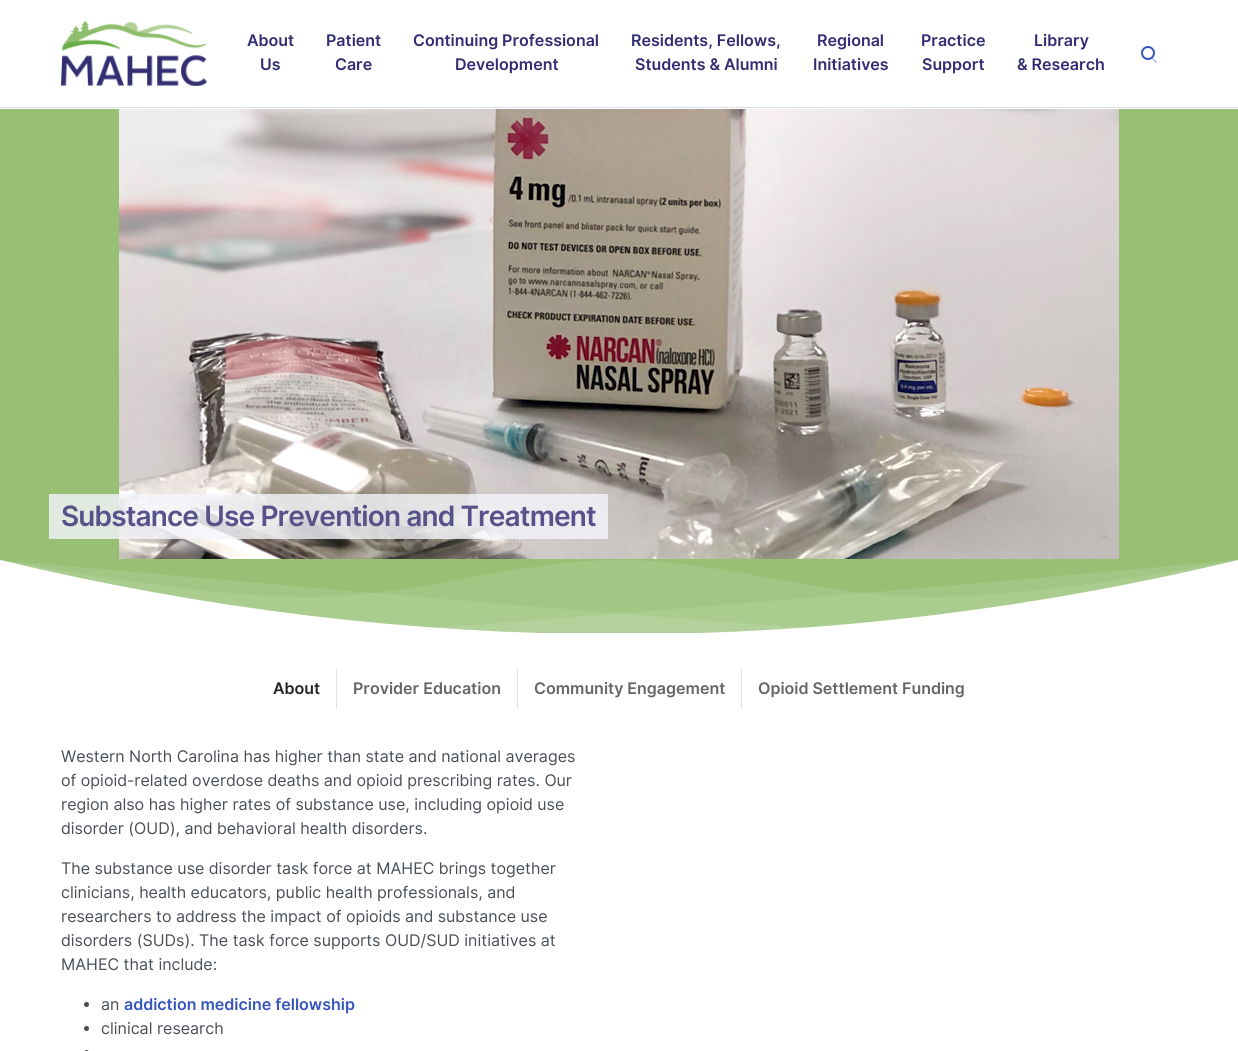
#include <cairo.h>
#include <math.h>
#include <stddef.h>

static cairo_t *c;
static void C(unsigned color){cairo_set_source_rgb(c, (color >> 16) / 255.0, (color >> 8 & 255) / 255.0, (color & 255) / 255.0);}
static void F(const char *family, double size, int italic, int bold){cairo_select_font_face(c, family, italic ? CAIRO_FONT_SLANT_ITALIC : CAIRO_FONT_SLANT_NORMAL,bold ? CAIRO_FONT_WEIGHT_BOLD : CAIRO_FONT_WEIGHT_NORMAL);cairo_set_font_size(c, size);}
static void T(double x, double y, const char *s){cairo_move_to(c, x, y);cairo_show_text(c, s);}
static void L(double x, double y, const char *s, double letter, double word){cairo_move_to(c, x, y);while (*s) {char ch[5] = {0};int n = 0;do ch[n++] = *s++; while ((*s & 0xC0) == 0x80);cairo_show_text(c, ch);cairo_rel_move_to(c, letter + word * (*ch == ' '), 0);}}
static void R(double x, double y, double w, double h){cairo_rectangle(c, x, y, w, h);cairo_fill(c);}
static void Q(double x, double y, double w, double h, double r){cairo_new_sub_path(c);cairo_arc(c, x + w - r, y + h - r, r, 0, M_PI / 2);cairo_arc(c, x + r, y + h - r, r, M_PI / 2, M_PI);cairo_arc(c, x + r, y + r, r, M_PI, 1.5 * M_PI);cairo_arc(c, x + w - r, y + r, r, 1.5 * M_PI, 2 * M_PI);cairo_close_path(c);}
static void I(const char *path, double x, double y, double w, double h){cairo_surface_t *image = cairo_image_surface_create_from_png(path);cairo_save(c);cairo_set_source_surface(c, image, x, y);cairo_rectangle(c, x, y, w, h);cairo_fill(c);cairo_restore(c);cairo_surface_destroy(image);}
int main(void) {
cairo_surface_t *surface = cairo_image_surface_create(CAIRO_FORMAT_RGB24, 1238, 1051);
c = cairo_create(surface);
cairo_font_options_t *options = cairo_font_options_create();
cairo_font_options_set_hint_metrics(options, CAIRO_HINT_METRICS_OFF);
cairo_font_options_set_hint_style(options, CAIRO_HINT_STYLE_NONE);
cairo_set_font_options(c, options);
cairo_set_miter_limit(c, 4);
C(0xffffff);
cairo_paint(c);
C(0xdee2e6);
R(0,107,1238,1);
I("1.png",61,21,146,65);
F("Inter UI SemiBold",16,0,0);
C(0x332d73);
T(247,46,"About");
T(260,70,"Us");
T(326,46,"Patient");
T(335,70,"Care");
T(413,46,"Continuing Professional");
T(455,70,"Development");
T(631,46,"Residents, Fellows,");
T(635,70,"Students & Alumni");
T(817,46,"Regional");
T(813,70,"Initiatives");
T(921,46,"Practice");
T(922,70,"Support");
T(1034,46,"Library");
T(1017,70,"& Research");
I("2.png",1141,46,16,17);
C(0x97c075);
R(0,109,1238,524);
I("3.png",119,109,1000,450);
cairo_set_source_rgba(c,0.953,0.961,0.984,0.8);
R(49,494,559,45);
F("Inter UI SemiBold",28,0,0);
C(0x57528a);
L(61,526,"Substance Use Prevention and Treatment",-.85,0);
I("4.png",0,560,1238,73);
F("Inter UI SemiBold",16,0,0);
C(0x212529);
T(273,694,"About");
C(0xdee2e6);
R(336,669,1,40);
C(0x646669);
T(353,694,"Provider Education");
C(0xdee2e6);
R(517,669,1,40);
C(0x646669);
T(534,694,"Community Engagement");
C(0xdee2e6);
R(741,669,1,40);
C(0x646669);
T(758,694,"Opioid Settlement Funding");
F("Inter UI",16,0,0);
C(0x495057);
T(61,762,"Western North Carolina has higher than state and national averages");
T(61,786,"of opioid-related overdose deaths and opioid prescribing rates. Our");
T(61,810,"region also has higher rates of substance use, including opioid use");
T(61,834,"disorder (OUD), and behavioral health disorders.");
T(61,874,"The substance use disorder task force at MAHEC brings together");
T(61,898,"clinicians, health educators, public health professionals, and");
T(61,922,"researchers to address the impact of opioids and substance use");
T(61,946,"disorders (SUDs). The task force supports OUD/SUD initiatives at");
T(61,970,"MAHEC that include:");
cairo_new_path(c);
cairo_arc(c,86.5,1004.5,2.5,0,2 * M_PI);
cairo_fill(c);
T(101,1010,"an");
F("Inter UI SemiBold",16,0,0);
C(0x3755be);
T(124,1010,"addiction medicine fellowship");
C(0x495057);
cairo_new_path(c);
cairo_arc(c,86.5,1028.5,2.5,0,2 * M_PI);
cairo_fill(c);
F("Inter UI",16,0,0);
T(101,1034,"clinical research");
Q(84,1050,5,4,2.5);
cairo_fill(c);
cairo_surface_write_to_png(surface, "o.png");
cairo_font_options_destroy(options);
cairo_destroy(c);
cairo_surface_destroy(surface);
return 0;
}
